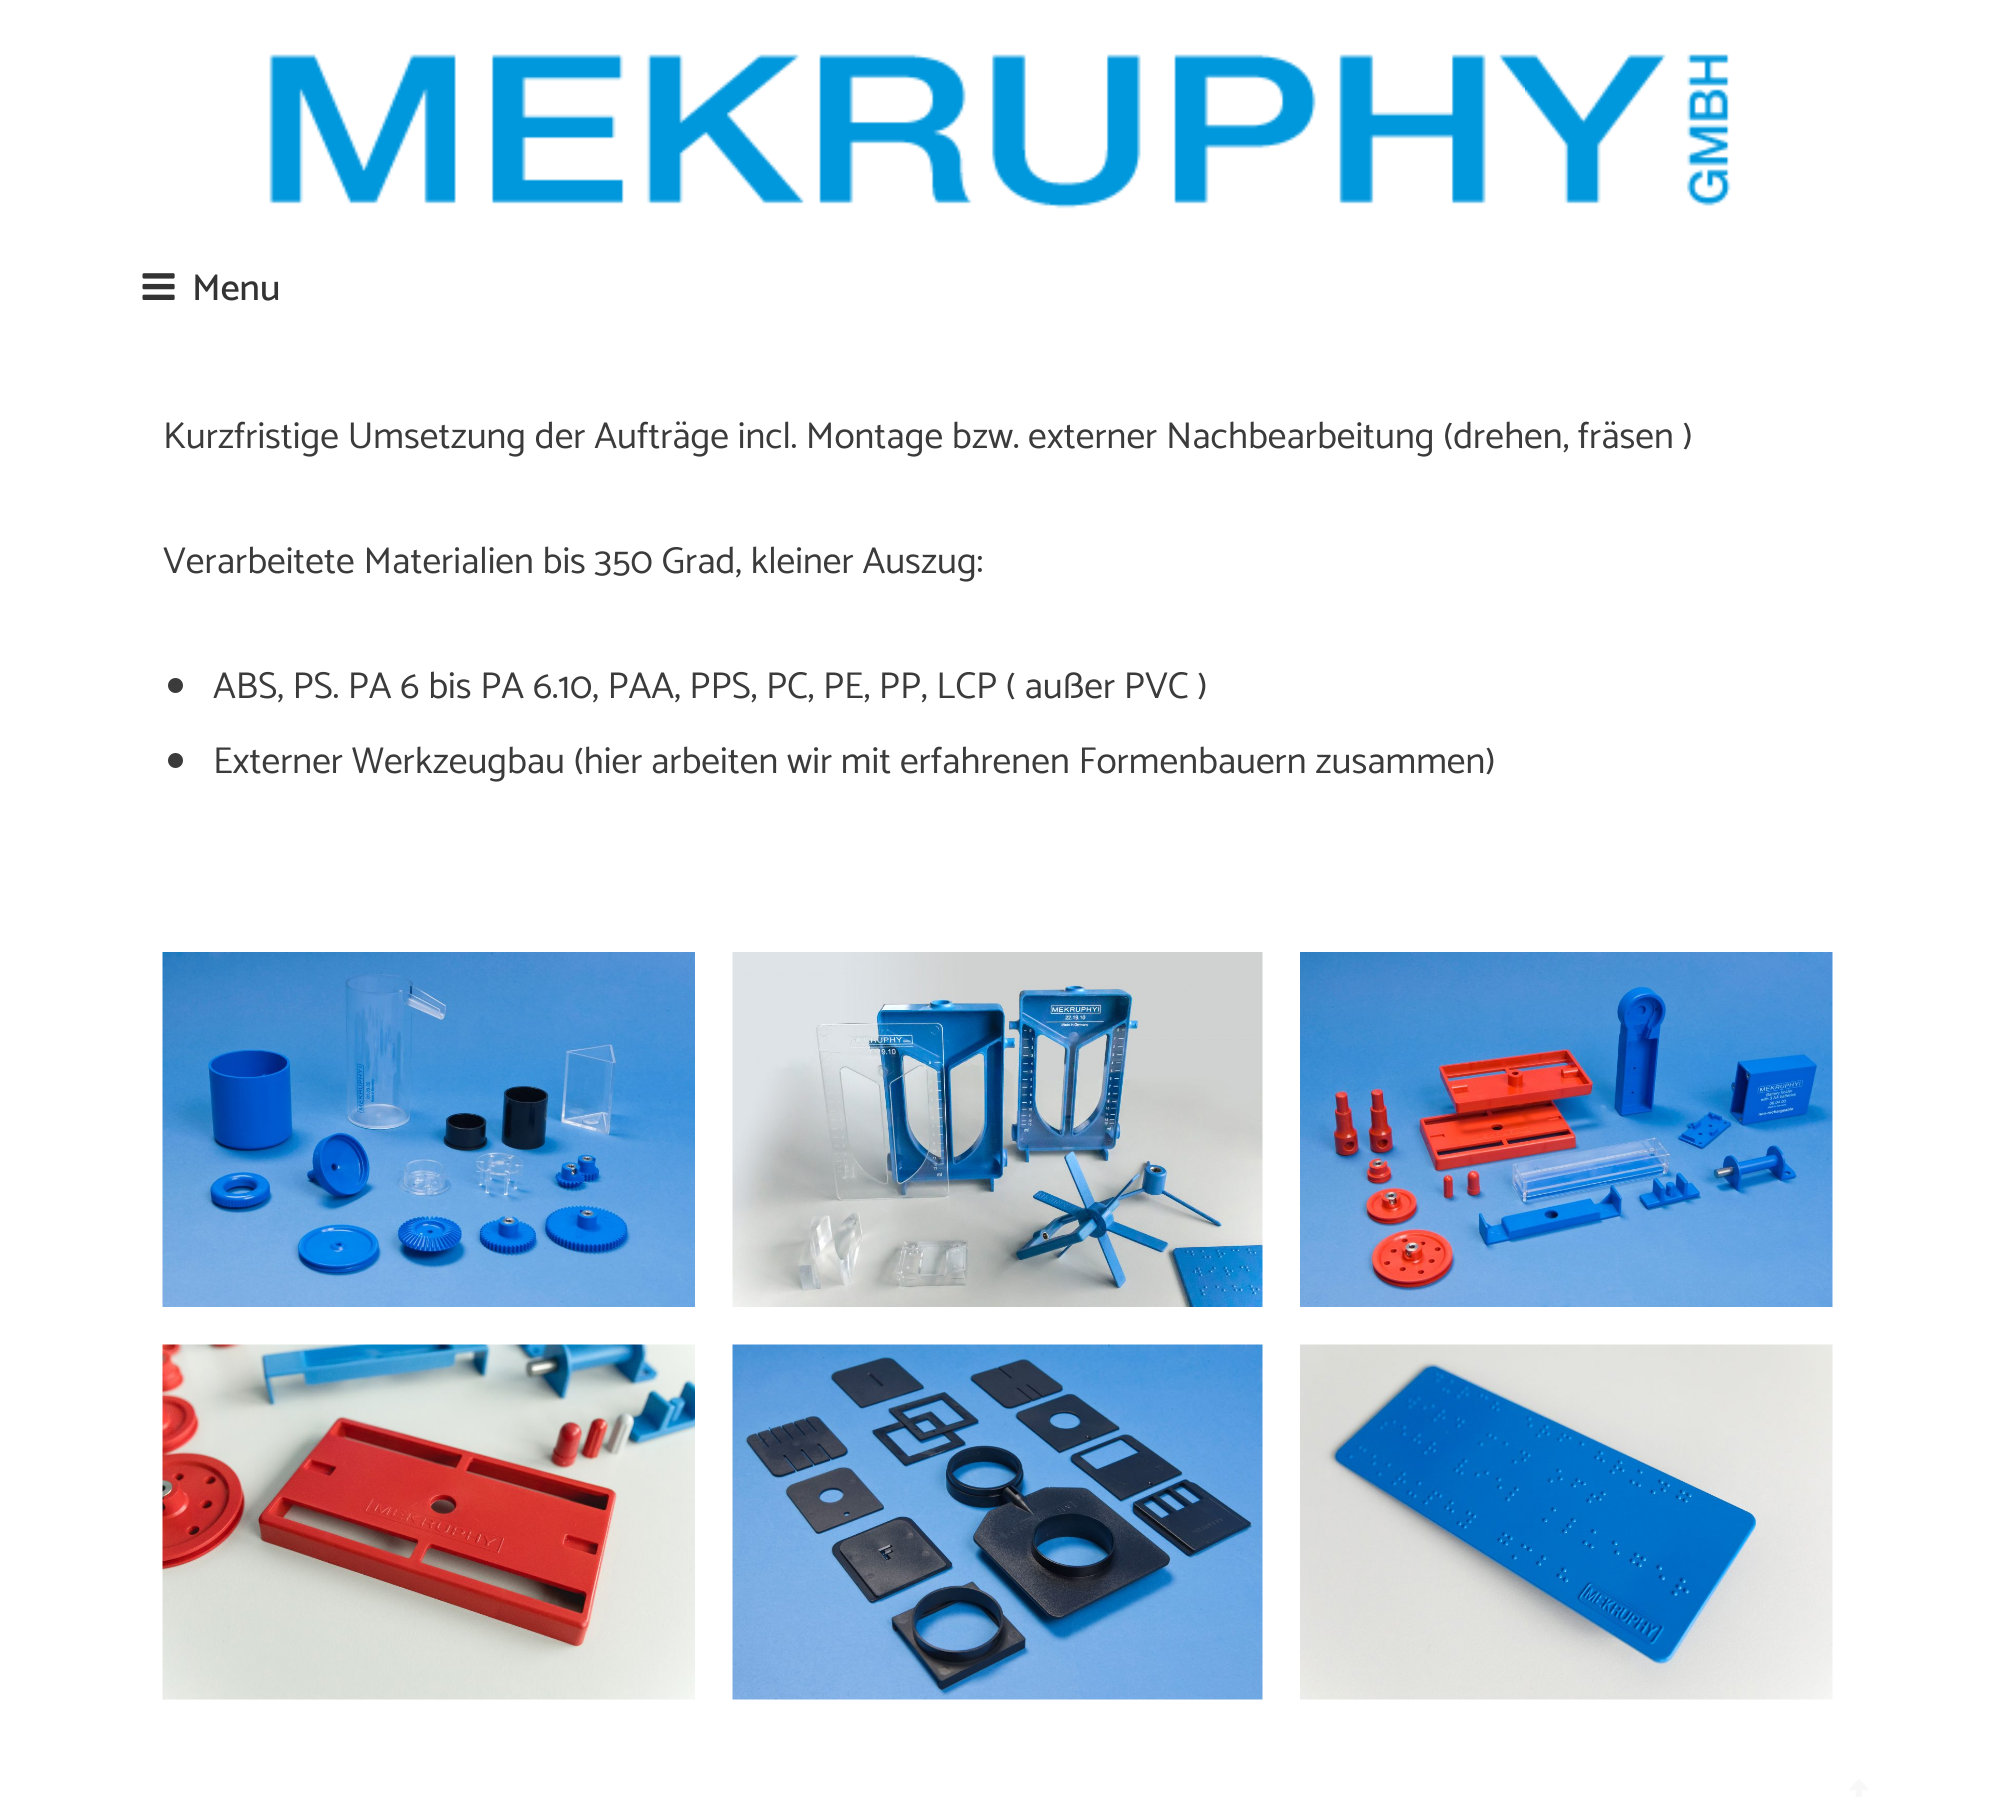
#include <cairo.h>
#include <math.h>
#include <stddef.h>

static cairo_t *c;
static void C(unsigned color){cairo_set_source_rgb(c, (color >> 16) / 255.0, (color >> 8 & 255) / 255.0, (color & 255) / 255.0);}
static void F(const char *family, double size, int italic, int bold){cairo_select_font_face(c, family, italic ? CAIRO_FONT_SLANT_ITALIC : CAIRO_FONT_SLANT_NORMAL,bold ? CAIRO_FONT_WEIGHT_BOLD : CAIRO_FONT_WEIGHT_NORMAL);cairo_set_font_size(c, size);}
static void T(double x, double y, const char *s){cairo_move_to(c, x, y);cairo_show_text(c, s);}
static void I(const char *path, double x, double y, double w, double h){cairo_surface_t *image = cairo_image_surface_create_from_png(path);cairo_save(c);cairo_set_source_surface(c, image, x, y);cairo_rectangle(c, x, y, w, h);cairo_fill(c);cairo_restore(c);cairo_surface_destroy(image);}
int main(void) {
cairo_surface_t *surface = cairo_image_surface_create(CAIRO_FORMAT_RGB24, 1995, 1797);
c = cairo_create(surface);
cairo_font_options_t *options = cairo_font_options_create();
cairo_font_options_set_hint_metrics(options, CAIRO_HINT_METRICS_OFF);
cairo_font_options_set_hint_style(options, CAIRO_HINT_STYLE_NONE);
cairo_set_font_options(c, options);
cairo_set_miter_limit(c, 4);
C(0xffffff);
cairo_paint(c);
I("1.png",269,54,1462,155);
I("2.png",142,273,33,27);
F("Catamaran Medium",37.5,0,0);
C(0x333333);
T(192,300,"Menu");
F("Catamaran",37.5,0,0);
C(0x3b3b3b);
T(163,448,"Kurzfristige Umsetzung der Aufträge incl. Montage bzw. externer Nachbearbeitung (drehen, fräsen )");
T(163,573,"Verarbeitete Materialien bis 350 Grad, kleiner Auszug:");
cairo_new_path(c);
cairo_arc(c,175.5,685.5,7.5,0,2 * M_PI);
cairo_fill(c);
T(213,698,"ABS, PS. PA 6 bis PA 6.10, PAA, PPS, PC, PE, PP, LCP ( außer PVC )");
cairo_new_path(c);
cairo_arc(c,175.5,760.5,7.5,0,2 * M_PI);
cairo_fill(c);
T(213,773,"Externer Werkzeugbau (hier arbeiten wir mit erfahrenen Formenbauern zusammen)");
I("3.png",162,952,533,355);
I("4.png",732,952,531,355);
I("5.png",1300,952,533,355);
I("6.png",162,1344,533,356);
I("7.png",732,1344,531,356);
I("8.png",1300,1344,533,356);
I("9.png",1849,1779,19,18);
cairo_surface_write_to_png(surface, "o.png");
cairo_font_options_destroy(options);
cairo_destroy(c);
cairo_surface_destroy(surface);
return 0;
}
